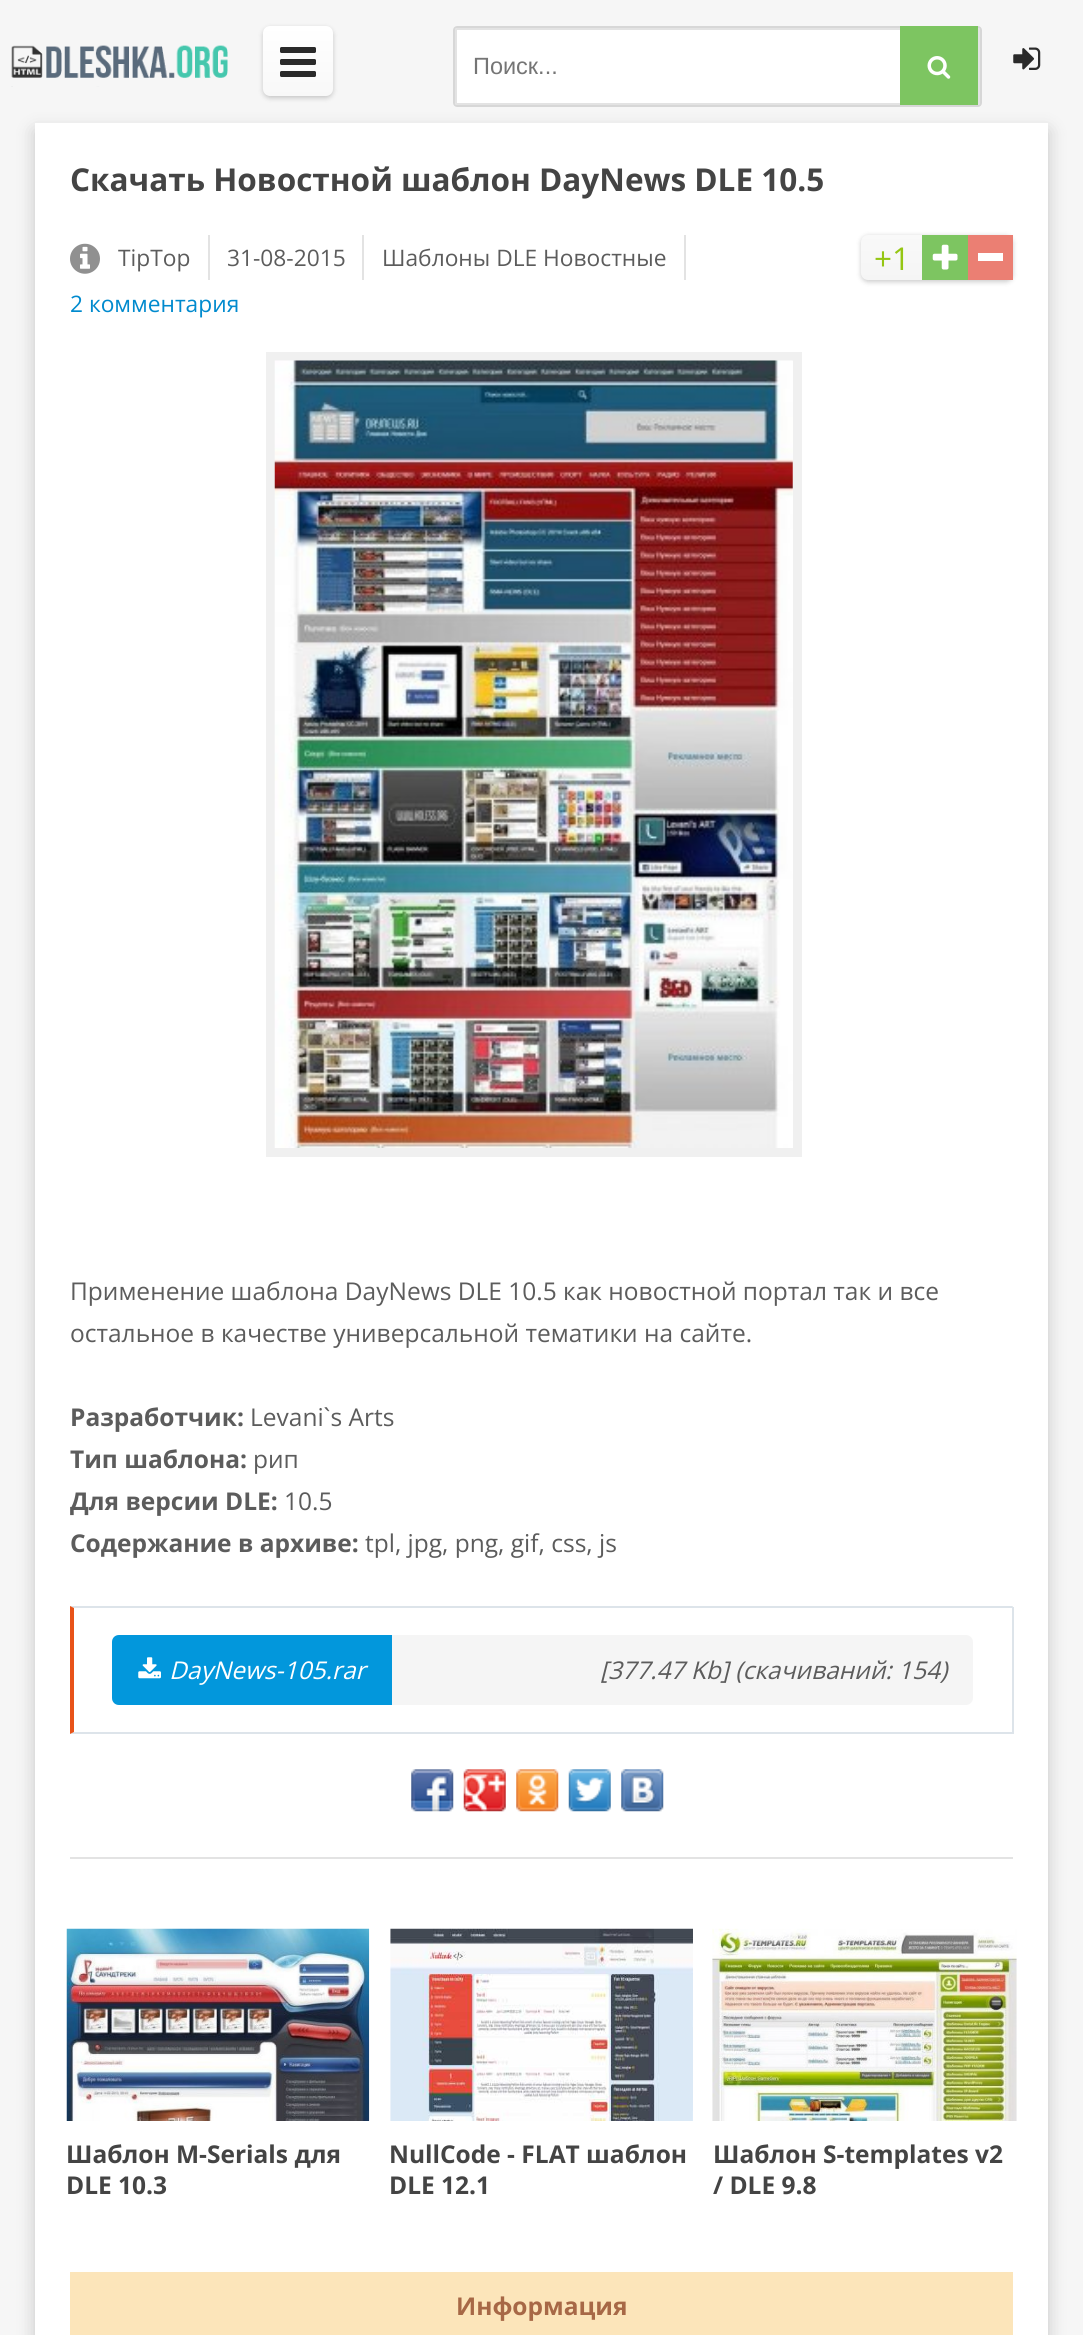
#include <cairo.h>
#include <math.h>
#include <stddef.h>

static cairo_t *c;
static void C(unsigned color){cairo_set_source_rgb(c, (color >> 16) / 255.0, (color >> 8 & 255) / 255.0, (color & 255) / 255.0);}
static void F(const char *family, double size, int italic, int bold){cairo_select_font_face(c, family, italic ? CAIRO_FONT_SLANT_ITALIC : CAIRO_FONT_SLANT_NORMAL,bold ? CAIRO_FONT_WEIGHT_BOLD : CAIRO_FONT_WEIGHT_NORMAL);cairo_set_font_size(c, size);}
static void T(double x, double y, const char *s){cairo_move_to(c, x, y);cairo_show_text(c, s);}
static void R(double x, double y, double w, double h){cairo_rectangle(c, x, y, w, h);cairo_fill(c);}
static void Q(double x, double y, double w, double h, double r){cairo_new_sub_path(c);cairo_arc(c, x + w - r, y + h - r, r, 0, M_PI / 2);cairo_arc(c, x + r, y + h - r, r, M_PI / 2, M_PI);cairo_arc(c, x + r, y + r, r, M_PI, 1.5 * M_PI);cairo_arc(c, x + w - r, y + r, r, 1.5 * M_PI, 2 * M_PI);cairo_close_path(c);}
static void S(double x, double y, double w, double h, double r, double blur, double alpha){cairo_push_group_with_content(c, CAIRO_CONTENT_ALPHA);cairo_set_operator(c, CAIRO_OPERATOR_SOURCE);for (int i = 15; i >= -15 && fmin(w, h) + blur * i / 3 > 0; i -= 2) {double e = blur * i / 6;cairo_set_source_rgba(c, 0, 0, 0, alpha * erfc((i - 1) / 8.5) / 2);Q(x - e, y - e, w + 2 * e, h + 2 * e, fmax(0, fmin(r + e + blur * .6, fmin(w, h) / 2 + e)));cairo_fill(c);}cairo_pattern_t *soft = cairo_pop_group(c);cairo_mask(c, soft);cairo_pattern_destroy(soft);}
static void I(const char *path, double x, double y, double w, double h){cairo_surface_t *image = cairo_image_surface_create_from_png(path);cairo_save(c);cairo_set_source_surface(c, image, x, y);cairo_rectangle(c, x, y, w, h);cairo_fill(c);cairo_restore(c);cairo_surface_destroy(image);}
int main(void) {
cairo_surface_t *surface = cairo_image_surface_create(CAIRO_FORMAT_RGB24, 1083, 2335);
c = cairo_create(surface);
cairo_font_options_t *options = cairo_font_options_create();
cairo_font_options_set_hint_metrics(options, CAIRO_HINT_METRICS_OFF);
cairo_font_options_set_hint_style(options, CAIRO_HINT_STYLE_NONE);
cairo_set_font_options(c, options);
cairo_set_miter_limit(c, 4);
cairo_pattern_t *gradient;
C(0xf6f6f6);
cairo_paint(c);
I("1.png",11,45,217,42);
C(0x000000);
S(263,28,70,70,7,2.5,.2);
gradient = cairo_pattern_create_linear(298,26,298,96);
cairo_pattern_add_color_stop_rgba(gradient,0,1,1,1,1);
cairo_pattern_add_color_stop_rgba(gradient,1,0.973,0.973,0.973,1);
cairo_set_source(c,gradient);
cairo_pattern_destroy(gradient);
Q(263,26,70,70,7);
cairo_fill(c);
I("2.png",280,47,36,30);
C(0xffffff);
Q(453,26,529,81,4);
cairo_fill(c);
Q(456,29,523,75,1);
C(0xe3e3e3);
cairo_stroke(c);
Q(454,27,527,79,3);
C(0xd7d7d7);
cairo_stroke(c);
F("Liberation Sans",23.5,0,0);
C(0x757575);
T(473,74,"Поиск...");
C(0x7dc561);
R(900,26,78,79);
I("3.png",927,56,24,23);
I("4.png",1013,47,28,23);
C(0x000000);
S(35,131,1013,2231,0,9,.2);
C(0xffffff);
R(35,123,1013,2212);
C(0xe3e3e3);
R(70,1857,943,2);
F("Open Sans",31.5,0,1);
C(0x444444);
T(70,191,"Скачать Новостной шаблон DayNews DLE 10.5");
I("5.png",70,243,30,31);
C(0xe3e3e3);
R(208,235,2,45);
F("Open Sans",22.75,0,0);
C(0x5c5c5c);
T(118,266,"TipTop");
C(0xe3e3e3);
R(362,235,2,45);
C(0x5c5c5c);
T(227,266,"31-08-2015");
C(0xe3e3e3);
R(684,235,2,45);
C(0x5c5c5c);
T(382,266,"Шаблоны DLE Новостные");
C(0x000000);
S(861,236,152,46,7,2.5,.2);
gradient = cairo_pattern_create_linear(937,235,937,280);
cairo_pattern_add_color_stop_rgba(gradient,0,0.976,0.976,0.976,1);
cairo_pattern_add_color_stop_rgba(gradient,1,0.961,0.961,0.961,1);
cairo_set_source(c,gradient);
cairo_pattern_destroy(gradient);
Q(861,235,152,45,7);
cairo_fill(c);
F("Open Sans",31.5,0,0);
C(0x95c613);
T(874,270,"+1");
C(0x7dc561);
R(922,235,46,45);
I("6.png",932,244,26,26);
C(0xeb7f73);
R(968,235,45,45);
C(0xffffff);
R(978,253,25,8);
F("Open Sans",22.75,0,0);
C(0x008ace);
T(70,312,"2 комментария");
cairo_rectangle(c,270.5,356.5,527,796);
C(0xf0f0f0);
cairo_set_line_width(c,9);
cairo_stroke(c);
I("7.png",274,360,519,788);
F("Open Sans",24.5,0,0);
C(0x5c5c5c);
T(70,1300,"Применение шаблона DayNews DLE 10.5 как новостной портал так и все");
T(70,1342,"остальное в качестве универсальной тематики на сайте.");
F("Open Sans",24.5,0,1);
T(70,1426,"Разработчик:");
F("Open Sans",24.5,0,0);
T(250,1426,"Levani`s Arts");
F("Open Sans",24.5,0,1);
T(70,1468,"Тип шаблона:");
F("Open Sans",24.5,0,0);
T(253,1468,"рип");
F("Open Sans",24.5,0,1);
T(70,1510,"Для версии DLE:");
F("Open Sans",24.5,0,0);
T(284,1510,"10.5");
F("Open Sans",24.5,0,1);
T(70,1552,"Содержание в архиве:");
F("Open Sans",24.5,0,0);
T(365,1552,"tpl, jpg, png, gif, css, js");
C(0xdde4ea);
cairo_new_path(c);
cairo_move_to(c,70,1606);
cairo_line_to(c,1013,1606);
cairo_line_to(c,1012,1608);
cairo_line_to(c,74,1608);
cairo_close_path(c);
cairo_fill(c);
R(1012,1607,2,127);
cairo_new_path(c);
cairo_move_to(c,1013,1734);
cairo_line_to(c,70,1734);
cairo_line_to(c,74,1732);
cairo_line_to(c,1012,1732);
cairo_close_path(c);
cairo_fill(c);
C(0xe85319);
cairo_new_path(c);
cairo_move_to(c,70,1734);
cairo_line_to(c,70,1606);
cairo_line_to(c,74,1608);
cairo_line_to(c,74,1732);
cairo_close_path(c);
cairo_fill(c);
C(0xf5f5f5);
Q(112,1635,861,70,7);
cairo_fill(c);
C(0x0297dc);
cairo_new_path(c);
cairo_move_to(c,119,1635);
cairo_line_to(c,392,1635);
cairo_line_to(c,392,1705);
cairo_line_to(c,119,1705);
cairo_curve_to(c,115,1705,112,1702,112,1698);
cairo_line_to(c,112,1642);
cairo_curve_to(c,112,1638,115,1635,119,1635);
cairo_close_path(c);
cairo_fill(c);
I("8.png",138,1657,23,22);
F("Open Sans",24.5,1,0);
C(0xffffff);
T(169,1679,"DayNews-105.rar");
C(0x5c5c5c);
T(600,1679,"[377.47 Kb] (cкачиваний: 154)");
I("9.png",411,1769,43,43);
I("10.png",463,1769,43,43);
I("11.png",516,1769,43,43);
I("12.png",568,1769,43,43);
I("13.png",621,1769,43,43);
I("14.png",66,1928,304,193);
F("Open Sans",24.5,0,1);
C(0x444444);
T(66,2163,"Шаблон M-Serials для");
T(66,2194,"DLE 10.3");
I("15.png",390,1928,303,193);
T(389,2163,"NullCode - FLAT шаблон");
T(389,2194,"DLE 12.1");
I("16.png",712,1928,305,193);
T(713,2163,"Шаблон S-templates v2");
T(713,2194,"/ DLE 9.8");
C(0xfce5ba);
R(70,2272,943,63);
C(0xa76846);
T(456,2315,"Информация");
cairo_surface_write_to_png(surface, "o.png");
cairo_font_options_destroy(options);
cairo_destroy(c);
cairo_surface_destroy(surface);
return 0;
}
